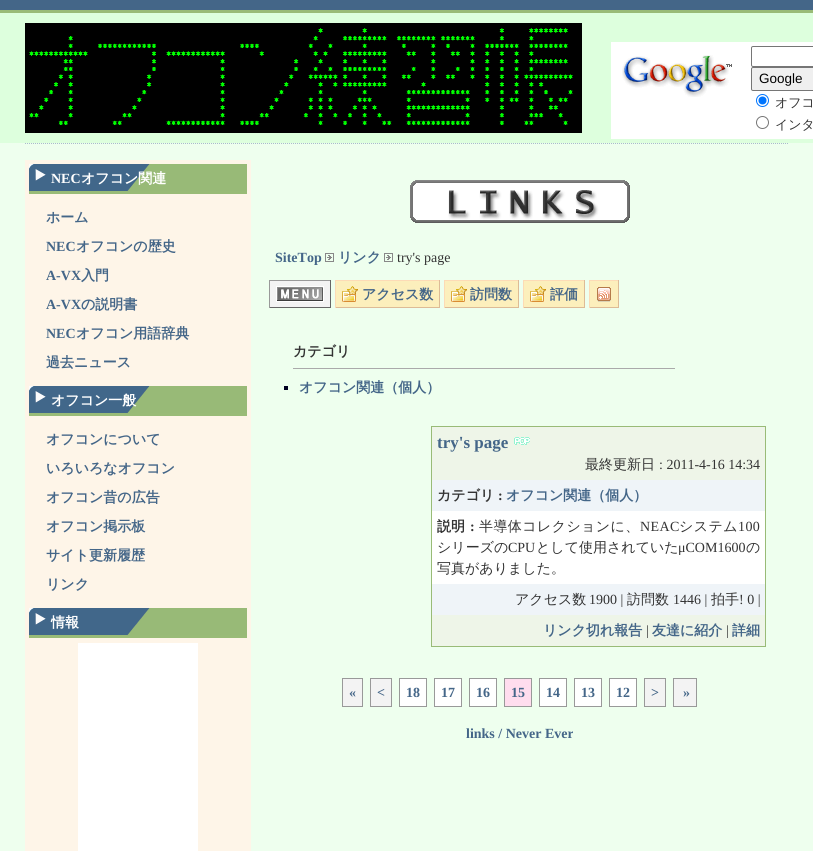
#include <cairo.h>
#include <math.h>
#include <stddef.h>

static cairo_t *c;
static void C(unsigned color){cairo_set_source_rgb(c, (color >> 16) / 255.0, (color >> 8 & 255) / 255.0, (color & 255) / 255.0);}
static void F(const char *family, double size, int italic, int bold){cairo_select_font_face(c, family, italic ? CAIRO_FONT_SLANT_ITALIC : CAIRO_FONT_SLANT_NORMAL,bold ? CAIRO_FONT_WEIGHT_BOLD : CAIRO_FONT_WEIGHT_NORMAL);cairo_set_font_size(c, size);}
static void T(double x, double y, const char *s){cairo_move_to(c, x, y);cairo_show_text(c, s);}
static void L(double x, double y, const char *s, double letter, double word){cairo_move_to(c, x, y);while (*s) {char ch[5] = {0};int n = 0;do ch[n++] = *s++; while ((*s & 0xC0) == 0x80);cairo_show_text(c, ch);cairo_rel_move_to(c, letter + word * (*ch == ' '), 0);}}
static void R(double x, double y, double w, double h){cairo_rectangle(c, x, y, w, h);cairo_fill(c);}
static void Q(double x, double y, double w, double h, double r){cairo_new_sub_path(c);cairo_arc(c, x + w - r, y + h - r, r, 0, M_PI / 2);cairo_arc(c, x + r, y + h - r, r, M_PI / 2, M_PI);cairo_arc(c, x + r, y + r, r, M_PI, 1.5 * M_PI);cairo_arc(c, x + w - r, y + r, r, 1.5 * M_PI, 2 * M_PI);cairo_close_path(c);}
static void I(const char *path, double x, double y, double w, double h){cairo_surface_t *image = cairo_image_surface_create_from_png(path);cairo_save(c);cairo_set_source_surface(c, image, x, y);cairo_rectangle(c, x, y, w, h);cairo_fill(c);cairo_restore(c);cairo_surface_destroy(image);}
int main(void) {
cairo_surface_t *surface = cairo_image_surface_create(CAIRO_FORMAT_RGB24, 813, 851);
c = cairo_create(surface);
cairo_font_options_t *options = cairo_font_options_create();
cairo_font_options_set_hint_metrics(options, CAIRO_HINT_METRICS_OFF);
cairo_font_options_set_hint_style(options, CAIRO_HINT_STYLE_NONE);
cairo_set_font_options(c, options);
cairo_set_miter_limit(c, 4);
C(0xeeffee);
cairo_paint(c);
C(0x446688);
R(0,0,813,10);
C(0x99bb77);
R(0,10,813,3);
C(0xddffdd);
R(0,13,813,130);
I("1.png",25,23,557,110);
C(0xffffff);
R(611,42,202,97);
I("2.png",622,55,110,42);
Q(751.5,46.5,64,20,1.5);
C(0x767676);
cairo_set_line_width(c,1);
cairo_stroke(c);
C(0xefefef);
Q(751.5,67.5,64,23,1.5);
cairo_fill_preserve(c);
C(0x767676);
cairo_stroke(c);
F("Liberation Sans",13.5,0,0);
C(0x000000);
T(759,83,"Google");
cairo_new_path(c);
cairo_arc(c,762.5,100.5,6,0,2 * M_PI);
C(0x0075ff);
cairo_stroke(c);
cairo_arc(c,762.5,100.5,4,0,2 * M_PI);
cairo_fill(c);
F("WenQuanYi Zen Hei Medium",13,0,0);
C(0x333333);
T(775,107,"オフコ");
cairo_new_path(c);
cairo_arc(c,762.5,122.5,6,0,2 * M_PI);
C(0x767676);
cairo_stroke(c);
C(0x333333);
T(775,129,"インタ");
cairo_new_path(c);
cairo_move_to(c,25,143.5);
cairo_line_to(c,788,143.5);
C(0xaabbcc);
cairo_set_dash(c,(double[]){1,1},2,0);
cairo_stroke(c);
C(0xfef5e8);
R(25,160,226,691);
I("3.png",29,164,218,27);
C(0x99bb77);
R(29,191,218,3);
F("Liberation Serif",14,0,1);
C(0xffffff);
T(51,183,"NEC");
F("WenQuanYi Zen Hei",14,0,1);
T(81,183,"オフコン関連");
C(0x446688);
T(46,222,"ホーム");
F("Liberation Serif",14,0,1);
T(46,251,"NEC");
F("WenQuanYi Zen Hei",14,0,1);
T(76,251,"オフコンの歴史");
F("Liberation Serif",14,0,1);
T(46,280,"A-VX");
F("WenQuanYi Zen Hei",14,0,1);
T(81,280,"入門");
F("Liberation Serif",14,0,1);
T(46,309,"A-VX");
F("WenQuanYi Zen Hei",14,0,1);
T(81,309,"の説明書");
F("Liberation Serif",14,0,1);
T(46,338,"NEC");
F("WenQuanYi Zen Hei",14,0,1);
T(76,338,"オフコン用語辞典");
T(46,367,"過去ニュース");
I("3.png",29,386,218,27);
C(0x99bb77);
R(29,413,218,3);
C(0xffffff);
T(51,405,"オフコン一般");
C(0x446688);
T(46,444,"オフコンについて");
T(46,473,"いろいろなオフコン");
T(46,502,"オフコン昔の広告");
T(46,531,"オフコン掲示板");
T(46,560,"サイト更新履歴");
T(46,589,"リンク");
I("3.png",29,608,218,27);
C(0x99bb77);
R(29,635,218,3);
C(0xffffff);
T(51,627,"情報");
R(78,643,120,208);
I("4.png",410,180,220,43);
F("Liberation Serif",14,0,1);
C(0x446688);
T(275,262,"SiteTop");
I("5.png",325,253,9,9);
F("WenQuanYi Zen Hei",14,0,1);
T(338,262,"リンク");
I("5.png",384,253,9,9);
F("Liberation Serif",14,0,0);
C(0x333333);
T(397,262,"try's page");
C(0xf3f3f3);
R(270,281,60,26);
C(0x999999);
R(269,280,62,1);
C(0x666666);
R(330,280,1,28);
R(269,307,62,1);
C(0x999999);
R(269,280,1,28);
I("6.png",276,286,48,16);
C(0xfcefbc);
R(336,281,103,26);
C(0xfddbb6);
R(335,280,105,1);
C(0xddbb96);
R(439,280,1,28);
R(335,307,105,1);
C(0xfddbb6);
R(335,280,1,28);
I("7.png",342,286,16,16);
F("WenQuanYi Zen Hei",14,0,1);
C(0x446688);
T(362,299,"アクセス数");
C(0xfcefbc);
R(445,281,73,26);
C(0xfddbb6);
R(444,280,75,1);
C(0xddbb96);
R(518,280,1,28);
R(444,307,75,1);
C(0xfddbb6);
R(444,280,1,28);
I("7.png",451,286,16,16);
C(0x446688);
T(470,299,"訪問数");
C(0xfcefbc);
R(524,281,60,26);
C(0xfddbb6);
R(523,280,62,1);
C(0xddbb96);
R(584,280,1,28);
R(523,307,62,1);
C(0xfddbb6);
R(523,280,1,28);
I("7.png",530,286,16,16);
C(0x446688);
T(550,299,"評価");
C(0xfcefbc);
R(590,281,28,26);
C(0xfddbb6);
R(589,280,30,1);
C(0xddbb96);
R(618,280,1,28);
R(589,307,30,1);
C(0xfddbb6);
R(589,280,1,28);
I("8.png",597,287,14,15);
C(0xaaaaaa);
R(293,368,382,1);
C(0x333333);
T(293,356,"カテゴリ");
C(0x000020);
R(284,386,4,4);
C(0x446688);
T(299,392,"オフコン関連（個人）");
C(0x99bb77);
R(431,426,335,1);
R(765,426,1,221);
R(431,646,335,1);
R(431,426,1,221);
C(0xeef5e8);
R(432,427,333,53);
F("Liberation Serif",17,0,1);
C(0x446688);
T(437,448,"try's page");
I("9.png",514,437,16,8);
F("WenQuanYi Zen Hei Medium",14,0,0);
C(0x333333);
T(585,469,"最終更新日");
F("Liberation Serif",14,0,0);
T(659,469,": 2011-4-16 14:34");
C(0xeff4f8);
R(432,480,333,31);
F("WenQuanYi Zen Hei",14,0,1);
C(0x333333);
T(437,500,"カテゴリ");
F("Liberation Serif",14,0,1);
T(498,500,":");
F("WenQuanYi Zen Hei",14,0,1);
C(0x446688);
T(506,500,"オフコン関連（個人）");
C(0xffffff);
R(432,511,333,73);
C(0x333333);
T(437,531,"説明");
F("Liberation Serif",14,0,1);
T(470,531,":");
F("WenQuanYi Zen Hei Medium",14,0,0);
L(479,531,"半導体コレクションに、",.4,0);
F("Liberation Serif",14,0,0);
L(640,531,"NEAC",.4,0);
F("WenQuanYi Zen Hei Medium",14,0,0);
L(679,531,"システム",.4,0);
F("Liberation Serif",14,0,0);
L(738,531,"100",.4,0);
F("WenQuanYi Zen Hei Medium",14,0,0);
T(437,552,"シリーズの");
F("Liberation Serif",14,0,0);
T(508,552,"CPU");
F("WenQuanYi Zen Hei Medium",14,0,0);
T(536,552,"として使用されていた");
F("Liberation Serif",14,0,0);
T(678,552,"μCOM1600");
F("WenQuanYi Zen Hei Medium",14,0,0);
T(746,552,"の");
T(437,573,"写真がありました。");
C(0xeff4f8);
R(432,584,333,31);
C(0x333333);
T(515,604,"アクセス数");
F("Liberation Serif",14,0,0);
T(589,604,"1900 |");
F("WenQuanYi Zen Hei Medium",14,0,0);
T(627,604,"訪問数");
F("Liberation Serif",14,0,0);
T(673,604,"1446 |");
F("WenQuanYi Zen Hei Medium",14,0,0);
T(711,604,"拍手");
F("Liberation Serif",14,0,0);
T(739,604,"! 0 |");
C(0xeef5e8);
R(432,615,333,31);
F("WenQuanYi Zen Hei",14,0,1);
C(0x446688);
T(543,635,"リンク切れ報告");
F("Liberation Serif",14,0,0);
C(0x333333);
T(646,635,"|");
F("WenQuanYi Zen Hei",14,0,1);
C(0x446688);
T(652,635,"友達に紹介");
F("Liberation Serif",14,0,0);
C(0x333333);
T(726,635,"|");
F("WenQuanYi Zen Hei",14,0,1);
C(0x446688);
T(732,635,"詳細");
C(0xf3f3f3);
cairo_rectangle(c,342.5,678.5,20,28);
cairo_fill_preserve(c);
C(0x999999);
cairo_set_dash(c,NULL,0,0);
cairo_stroke(c);
F("Liberation Serif",14,0,1);
C(0x446688);
T(349,697,"«");
C(0xf3f3f3);
cairo_rectangle(c,370.5,678.5,21,28);
cairo_fill_preserve(c);
C(0x999999);
cairo_stroke(c);
C(0x446688);
T(377,697,"<");
C(0xffffff);
cairo_rectangle(c,399.5,678.5,27,28);
cairo_fill_preserve(c);
C(0x999999);
cairo_stroke(c);
C(0x446688);
T(406,697,"18");
C(0xffffff);
cairo_rectangle(c,434.5,678.5,27,28);
cairo_fill_preserve(c);
C(0x999999);
cairo_stroke(c);
C(0x446688);
T(441,697,"17");
C(0xffffff);
cairo_rectangle(c,469.5,678.5,27,28);
cairo_fill_preserve(c);
C(0x999999);
cairo_stroke(c);
C(0x446688);
T(476,697,"16");
C(0xffddee);
cairo_rectangle(c,504.5,678.5,27,28);
cairo_fill_preserve(c);
C(0x999999);
cairo_stroke(c);
C(0x446688);
T(511,697,"15");
C(0xffffff);
cairo_rectangle(c,539.5,678.5,27,28);
cairo_fill_preserve(c);
C(0x999999);
cairo_stroke(c);
C(0x446688);
T(546,697,"14");
C(0xffffff);
cairo_rectangle(c,574.5,678.5,27,28);
cairo_fill_preserve(c);
C(0x999999);
cairo_stroke(c);
C(0x446688);
T(581,697,"13");
C(0xffffff);
cairo_rectangle(c,609.5,678.5,27,28);
cairo_fill_preserve(c);
C(0x999999);
cairo_stroke(c);
C(0x446688);
T(616,697,"12");
C(0xf3f3f3);
cairo_rectangle(c,644.5,678.5,21,28);
cairo_fill_preserve(c);
C(0x999999);
cairo_stroke(c);
C(0x446688);
T(651,697,">");
C(0xf3f3f3);
cairo_rectangle(c,673.5,678.5,23,28);
cairo_fill_preserve(c);
C(0x999999);
cairo_stroke(c);
C(0x446688);
T(683,697,"»");
T(466,738,"links / Never Ever");
cairo_surface_write_to_png(surface, "o.png");
cairo_font_options_destroy(options);
cairo_destroy(c);
cairo_surface_destroy(surface);
return 0;
}
